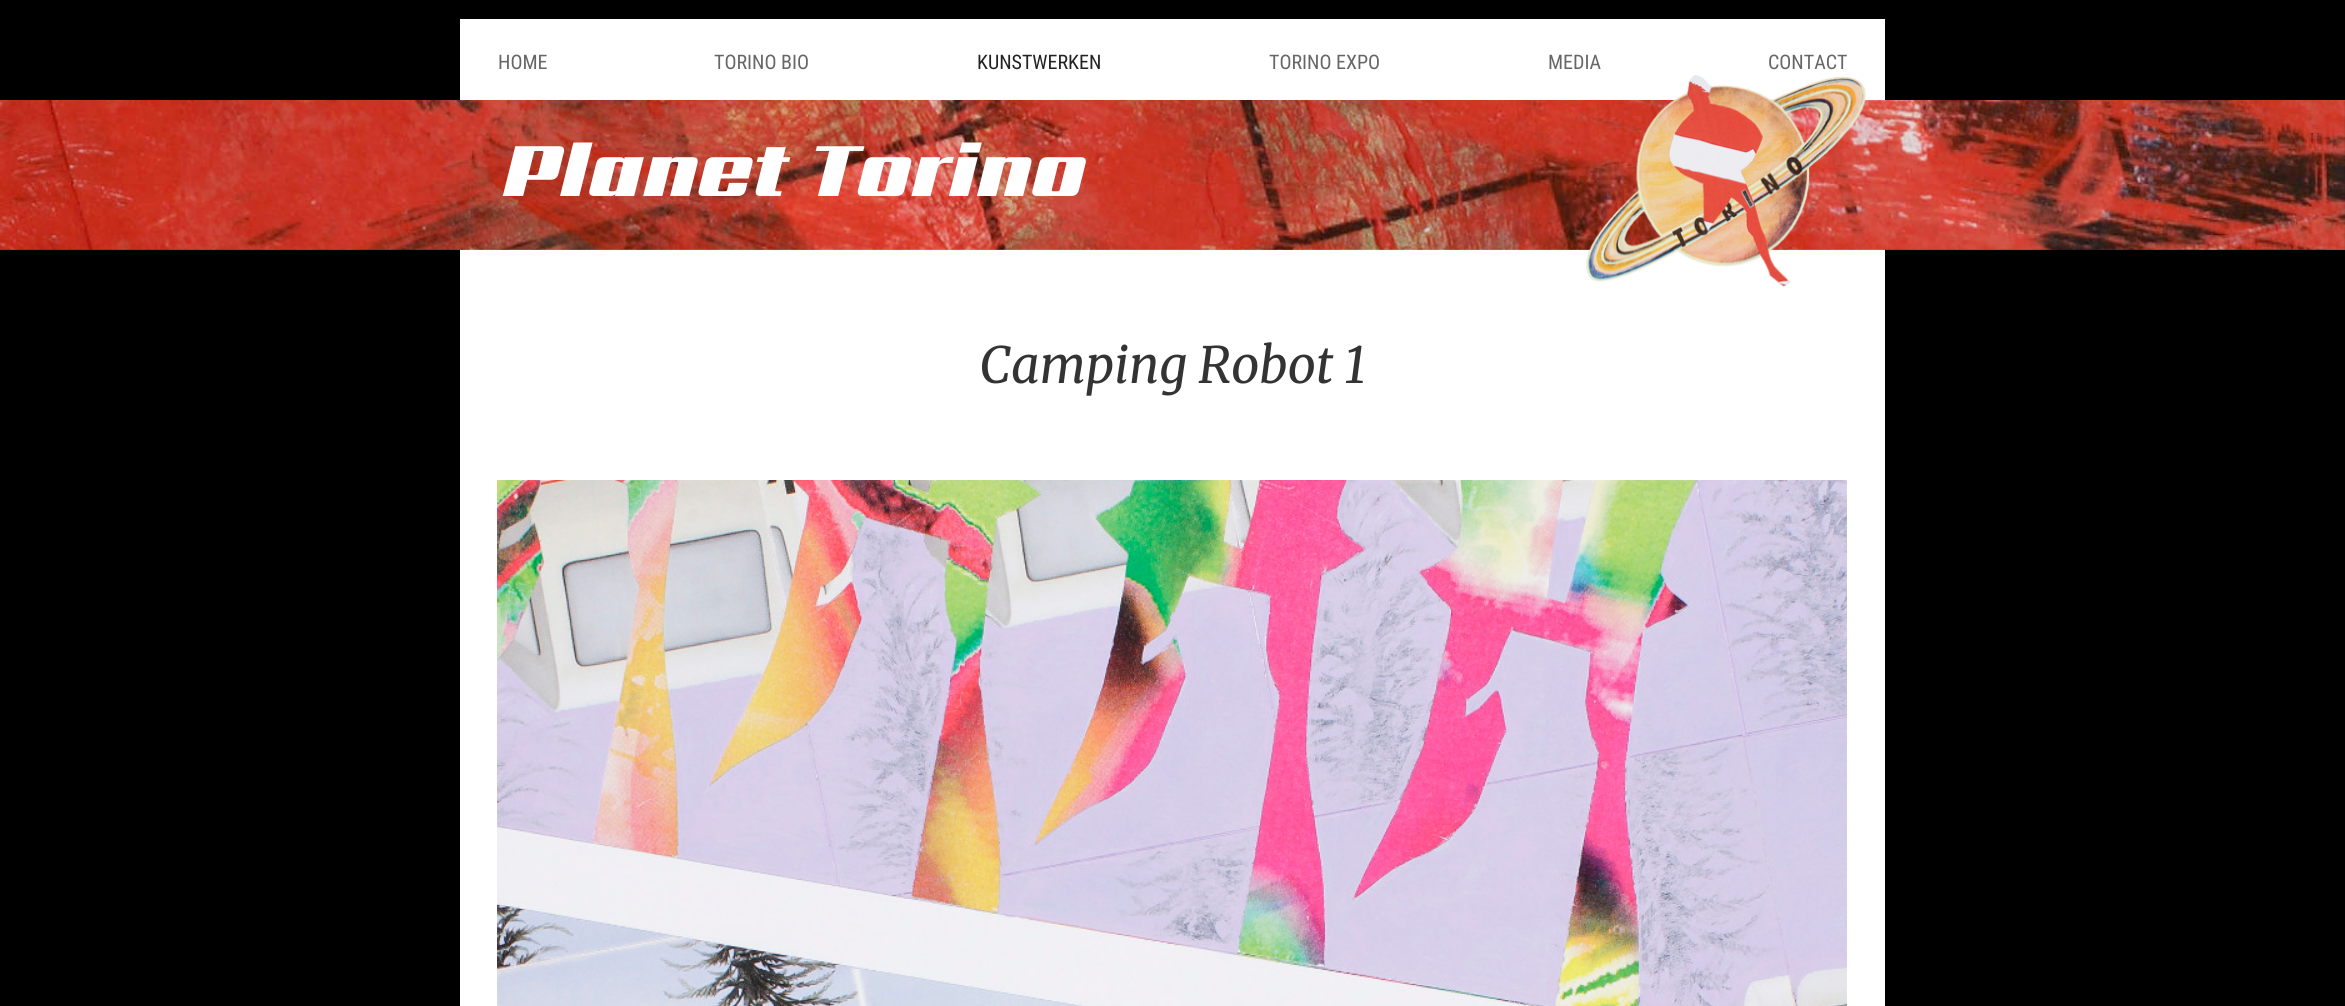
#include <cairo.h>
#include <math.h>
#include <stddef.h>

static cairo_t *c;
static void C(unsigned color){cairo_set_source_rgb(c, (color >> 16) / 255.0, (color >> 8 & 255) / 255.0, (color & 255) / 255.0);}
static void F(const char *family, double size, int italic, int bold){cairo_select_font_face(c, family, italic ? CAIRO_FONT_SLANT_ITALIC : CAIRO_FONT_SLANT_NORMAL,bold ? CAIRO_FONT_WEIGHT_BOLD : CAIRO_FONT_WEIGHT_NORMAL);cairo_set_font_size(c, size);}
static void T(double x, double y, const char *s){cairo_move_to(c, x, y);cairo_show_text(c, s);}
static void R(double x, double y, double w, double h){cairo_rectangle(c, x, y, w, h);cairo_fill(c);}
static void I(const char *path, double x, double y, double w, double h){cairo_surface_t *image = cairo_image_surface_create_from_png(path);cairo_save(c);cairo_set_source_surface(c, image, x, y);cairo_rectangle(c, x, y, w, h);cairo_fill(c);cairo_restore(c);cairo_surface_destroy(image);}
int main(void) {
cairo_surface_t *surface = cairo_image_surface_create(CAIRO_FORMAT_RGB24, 2345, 1006);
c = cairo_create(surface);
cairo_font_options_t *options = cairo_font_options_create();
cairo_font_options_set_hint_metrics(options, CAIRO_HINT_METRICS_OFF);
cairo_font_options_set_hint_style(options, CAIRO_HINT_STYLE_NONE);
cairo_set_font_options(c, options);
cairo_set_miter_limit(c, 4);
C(0x000000);
cairo_paint(c);
C(0xffffff);
R(460,19,1425,987);
F("Roboto Condensed",20,0,0);
C(0x666666);
T(498,69,"HOME");
T(714,69,"TORINO BIO");
C(0x222222);
T(977,69,"KUNSTWERKEN");
C(0x666666);
T(1269,69,"TORINO EXPO");
T(1548,69,"MEDIA");
T(1768,69,"CONTACT");
I("1.png",0,100,2345,150);
F("Sarpanch Black",80,1,0);
C(0xffffff);
T(498,196,"Planet Torino");
I("2.png",1586,75,280,212);
F("Merriweather Light",50,1,0);
C(0x333333);
T(979,383,"Camping Robot 1");
I("3.png",497,480,1350,526);
cairo_surface_write_to_png(surface, "o.png");
cairo_font_options_destroy(options);
cairo_destroy(c);
cairo_surface_destroy(surface);
return 0;
}
